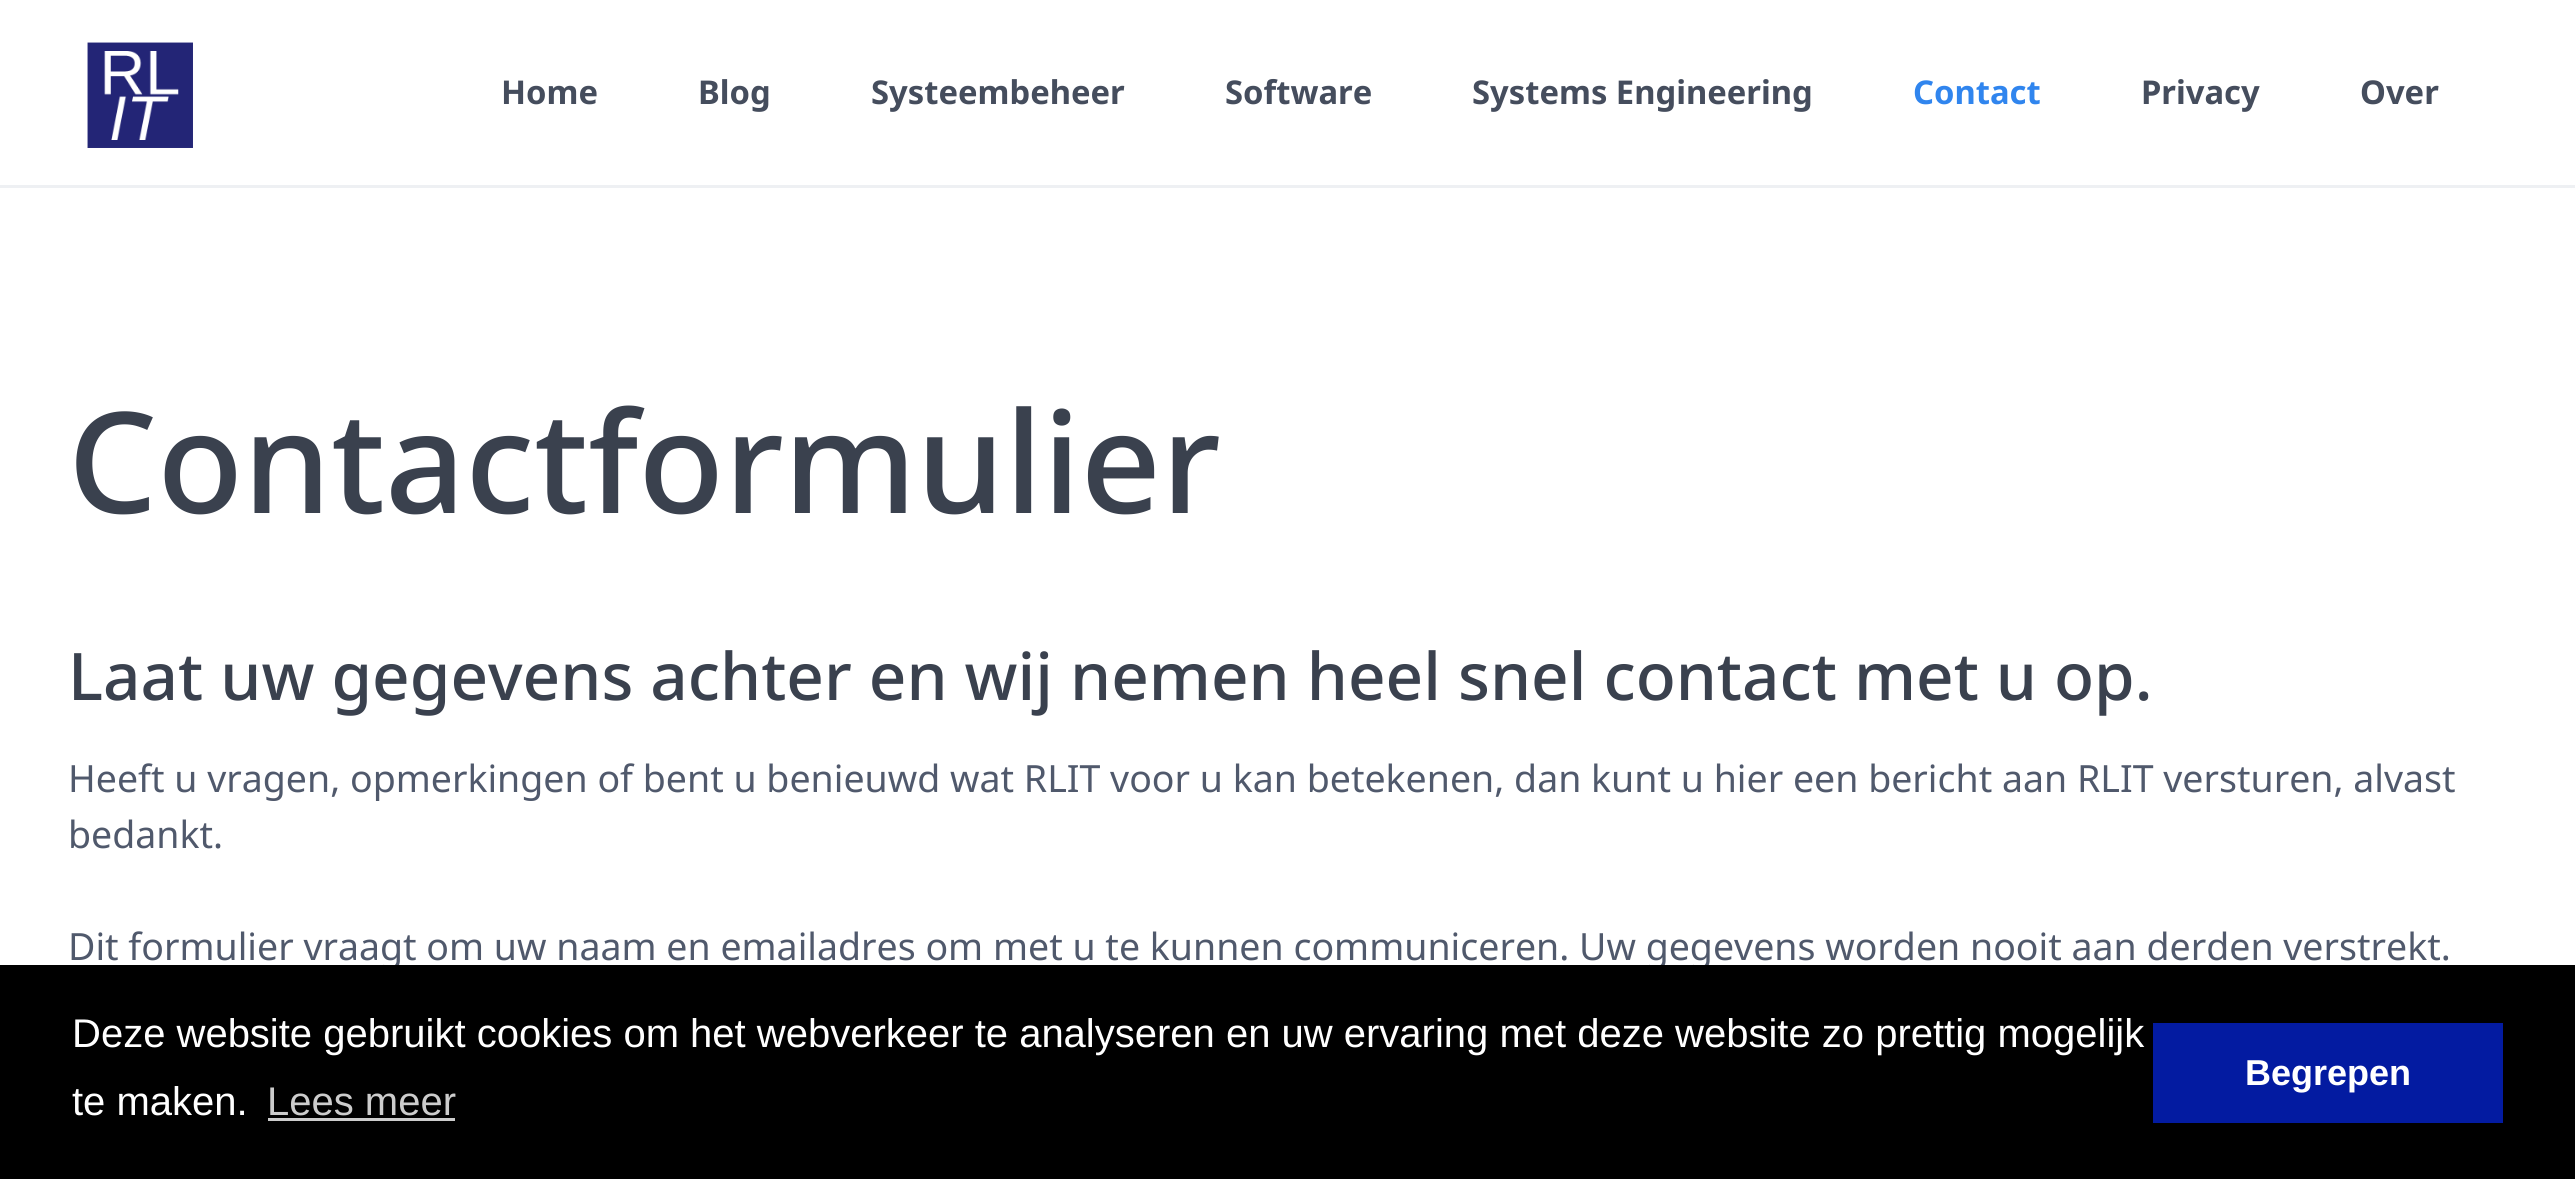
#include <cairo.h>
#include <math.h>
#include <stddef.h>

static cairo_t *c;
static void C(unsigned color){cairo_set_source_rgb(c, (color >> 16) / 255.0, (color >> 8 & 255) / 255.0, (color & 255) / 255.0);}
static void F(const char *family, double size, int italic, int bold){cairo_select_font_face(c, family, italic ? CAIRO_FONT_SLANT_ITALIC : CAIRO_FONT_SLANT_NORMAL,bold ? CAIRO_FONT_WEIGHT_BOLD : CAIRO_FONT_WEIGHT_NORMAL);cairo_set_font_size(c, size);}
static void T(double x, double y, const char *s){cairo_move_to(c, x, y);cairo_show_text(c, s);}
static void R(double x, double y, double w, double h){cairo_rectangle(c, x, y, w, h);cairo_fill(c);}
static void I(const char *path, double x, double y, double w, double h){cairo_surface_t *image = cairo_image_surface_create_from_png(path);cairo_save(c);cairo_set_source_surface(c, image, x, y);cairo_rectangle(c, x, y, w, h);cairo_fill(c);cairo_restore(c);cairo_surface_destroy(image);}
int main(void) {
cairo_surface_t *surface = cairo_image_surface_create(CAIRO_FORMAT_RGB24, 2575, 1179);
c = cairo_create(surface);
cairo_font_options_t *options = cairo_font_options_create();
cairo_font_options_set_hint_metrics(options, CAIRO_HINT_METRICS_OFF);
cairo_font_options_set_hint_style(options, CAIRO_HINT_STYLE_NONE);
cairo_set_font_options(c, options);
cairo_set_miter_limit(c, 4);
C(0xffffff);
cairo_paint(c);
C(0xeef0f3);
R(0,185,2575,3);
I("1.png",87,42,106,106);
F("Noto Sans",32.75,0,1);
C(0x454d5d);
T(501,104,"Home");
T(698,104,"Blog");
T(871,104,"Systeembeheer");
T(1225,104,"Software");
T(1472,104,"Systems Engineering");
C(0x3085ee);
T(1913,104,"Contact");
C(0x454d5d);
T(2141,104,"Privacy");
T(2360,104,"Over");
F("Noto Sans Medium",140.5,0,0);
C(0x3a414e);
T(68,513,"Contactformulier");
F("Noto Sans Medium",65.6,0,0);
T(68,700,"Laat uw gegevens achter en wij nemen heel snel contact met u op.");
F("Noto Sans",37.5,0,0);
C(0x50596c);
T(68,792,"Heeft u vragen, opmerkingen of bent u benieuwd wat RLIT voor u kan betekenen, dan kunt u hier een bericht aan RLIT versturen, alvast");
T(68,848,"bedankt.");
T(68,960,"Dit formulier vraagt om uw naam en emailadres om met u te kunnen communiceren. Uw gegevens worden nooit aan derden verstrekt.");
C(0x000000);
R(0,965,2575,214);
F("Liberation Sans",40,0,0);
C(0xffffff);
T(72,1047,"Deze website gebruikt cookies om het webverkeer te analyseren en uw ervaring met deze website zo prettig mogelijk");
T(72,1115,"te maken.");
C(0xcccccc);
T(267,1115,"Lees meer");
R(268,1118,187,3);
C(0x031ba1);
R(2153,1023,350,100);
F("Liberation Sans",36,0,1);
C(0xffffff);
T(2245,1085,"Begrepen");
cairo_surface_write_to_png(surface, "o.png");
cairo_font_options_destroy(options);
cairo_destroy(c);
cairo_surface_destroy(surface);
return 0;
}
